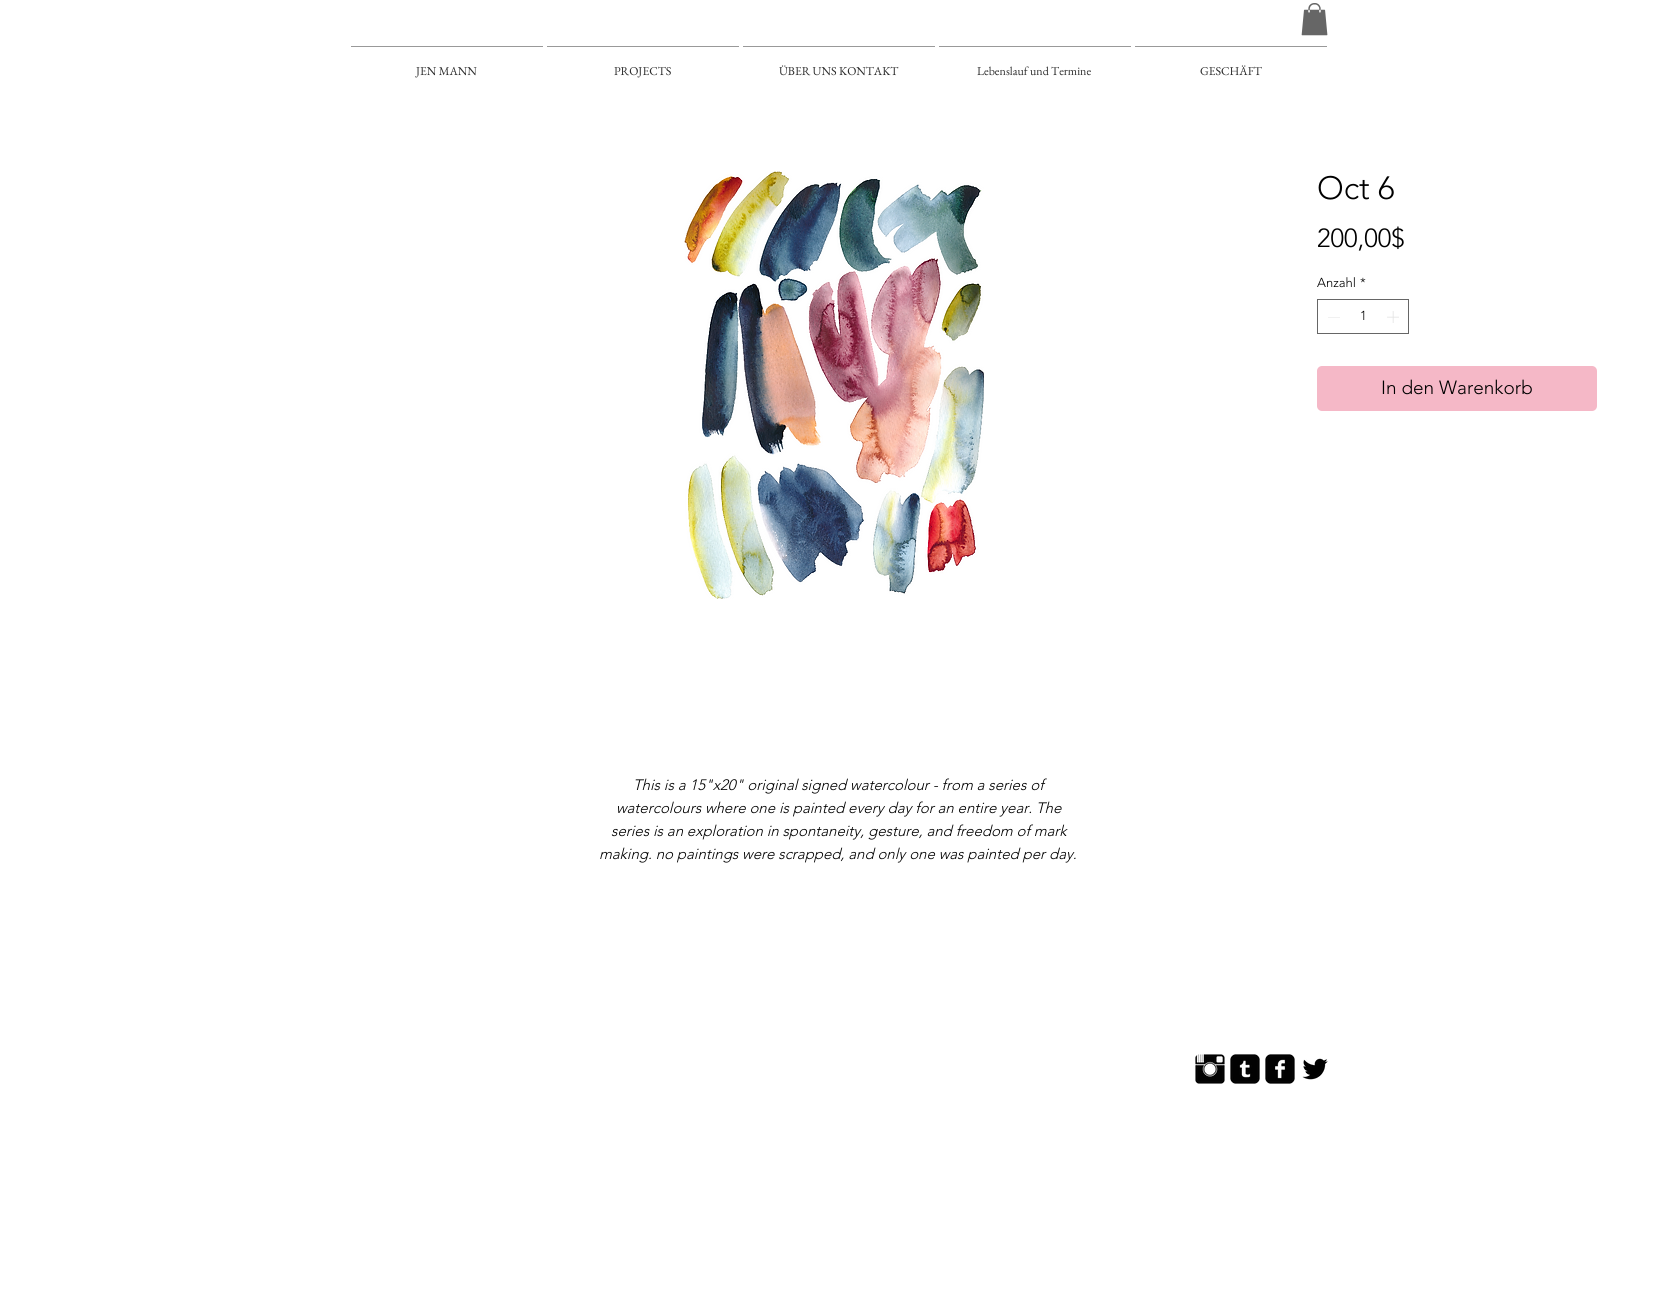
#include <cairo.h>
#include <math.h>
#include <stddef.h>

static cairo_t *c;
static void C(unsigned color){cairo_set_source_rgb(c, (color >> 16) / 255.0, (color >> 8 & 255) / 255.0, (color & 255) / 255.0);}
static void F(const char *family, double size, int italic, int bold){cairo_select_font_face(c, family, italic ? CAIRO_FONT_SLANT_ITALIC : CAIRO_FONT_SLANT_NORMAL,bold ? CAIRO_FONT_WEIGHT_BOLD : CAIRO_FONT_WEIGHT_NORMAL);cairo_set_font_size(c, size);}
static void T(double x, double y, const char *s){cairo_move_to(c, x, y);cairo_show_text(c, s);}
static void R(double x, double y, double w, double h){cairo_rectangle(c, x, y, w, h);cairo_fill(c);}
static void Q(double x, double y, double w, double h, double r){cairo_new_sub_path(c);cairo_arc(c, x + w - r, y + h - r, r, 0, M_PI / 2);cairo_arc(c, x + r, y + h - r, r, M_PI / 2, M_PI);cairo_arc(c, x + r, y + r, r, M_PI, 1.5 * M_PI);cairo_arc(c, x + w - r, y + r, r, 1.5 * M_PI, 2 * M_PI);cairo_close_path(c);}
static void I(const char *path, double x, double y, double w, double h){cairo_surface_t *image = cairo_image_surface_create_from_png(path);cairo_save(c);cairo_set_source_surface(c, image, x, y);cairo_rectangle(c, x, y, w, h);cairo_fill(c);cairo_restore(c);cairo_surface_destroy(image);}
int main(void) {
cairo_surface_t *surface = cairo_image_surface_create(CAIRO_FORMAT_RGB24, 1677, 1292);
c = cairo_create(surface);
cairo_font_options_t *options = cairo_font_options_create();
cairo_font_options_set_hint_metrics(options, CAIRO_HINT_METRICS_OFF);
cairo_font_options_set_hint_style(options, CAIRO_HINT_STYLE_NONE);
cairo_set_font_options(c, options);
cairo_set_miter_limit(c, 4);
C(0xffffff);
cairo_paint(c);
I("1.png",1301,3,27,33);
C(0x999999);
R(351,46,192,1);
F("EB Garamond",12,0,0);
C(0x2a2a2a);
T(416,75,"JEN MANN");
C(0x999999);
R(547,46,192,1);
C(0x2a2a2a);
T(614,75,"PROJECTS");
C(0x999999);
R(743,46,192,1);
C(0x2a2a2a);
T(779,75,"ÜBER UNS KONTAKT");
C(0x999999);
R(939,46,192,1);
C(0x2a2a2a);
T(977,75,"Lebenslauf und Termine");
C(0x999999);
R(1135,46,192,1);
C(0x2a2a2a);
T(1200,75,"GESCHÄFT");
I("2.png",684,171,300,428);
F("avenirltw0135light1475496 Light",32,0,0);
C(0x000000);
T(1317,199,"Oct 6");
F("avenirltw0135light1475496 Light",26,0,0);
T(1317,247,"200,00$");
F("avenirltw0135light1475496 Light",13,0,0);
T(1317,287,"Anzahl");
T(1360,287,"*");
cairo_rectangle(c,1317.5,299.5,91,34);
C(0x666666);
cairo_set_line_width(c,1);
cairo_stroke(c);
C(0xe3e3e3);
cairo_set_fill_rule(c,CAIRO_FILL_RULE_EVEN_ODD);
cairo_new_path(c);
cairo_move_to(c,1340,317);
cairo_line_to(c,1340,317.5);
cairo_line_to(c,1328,317.5);
cairo_line_to(c,1328,317);
cairo_close_path(c);
cairo_fill(c);
C(0x000000);
T(1360,320,"1");
I("3.png",1387,311,12,12);
C(0xf5b8c7);
Q(1317,366,280,45,5);
cairo_fill(c);
F("avenirltw0135light1475496 Light",19,0,0);
C(0x000000);
T(1381,394,"In den Warenkorb");
F("avenirltw0135light1475496 Light",15,1,0);
T(633,790,"This is a 15\"x20\" original signed watercolour - from a series of");
T(616,813,"watercolours where one is painted every day for an entire year. The");
T(611,836,"series is an exploration in spontaneity, gesture, and freedom of mark");
T(599,859,"making. no paintings were scrapped, and only one was painted per day.");
I("4.png",1195,1054,30,30);
I("5.png",1230,1054,30,30);
I("6.png",1265,1054,30,30);
I("7.png",1302,1058,26,22);
cairo_surface_write_to_png(surface, "o.png");
cairo_font_options_destroy(options);
cairo_destroy(c);
cairo_surface_destroy(surface);
return 0;
}
